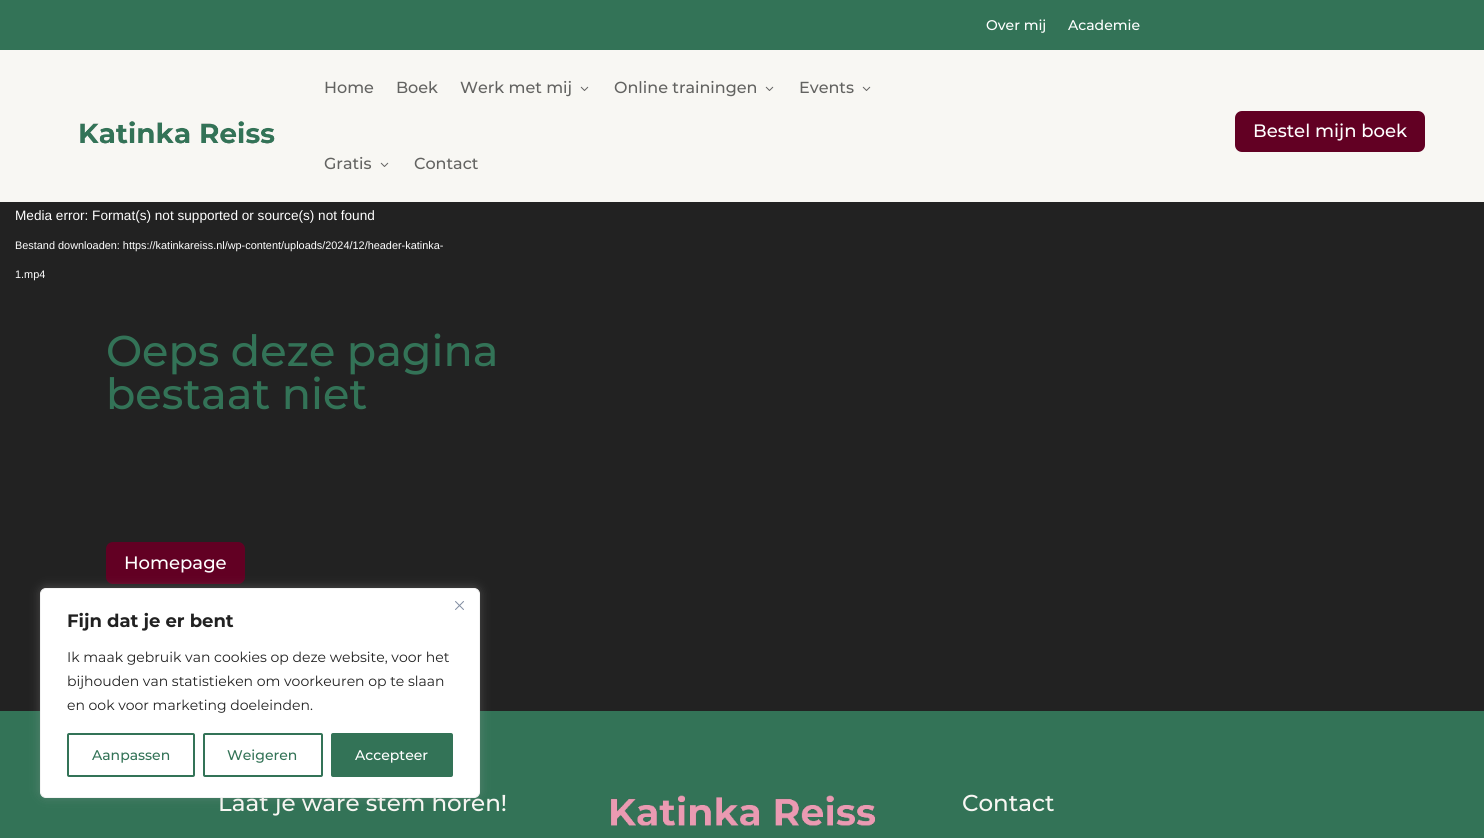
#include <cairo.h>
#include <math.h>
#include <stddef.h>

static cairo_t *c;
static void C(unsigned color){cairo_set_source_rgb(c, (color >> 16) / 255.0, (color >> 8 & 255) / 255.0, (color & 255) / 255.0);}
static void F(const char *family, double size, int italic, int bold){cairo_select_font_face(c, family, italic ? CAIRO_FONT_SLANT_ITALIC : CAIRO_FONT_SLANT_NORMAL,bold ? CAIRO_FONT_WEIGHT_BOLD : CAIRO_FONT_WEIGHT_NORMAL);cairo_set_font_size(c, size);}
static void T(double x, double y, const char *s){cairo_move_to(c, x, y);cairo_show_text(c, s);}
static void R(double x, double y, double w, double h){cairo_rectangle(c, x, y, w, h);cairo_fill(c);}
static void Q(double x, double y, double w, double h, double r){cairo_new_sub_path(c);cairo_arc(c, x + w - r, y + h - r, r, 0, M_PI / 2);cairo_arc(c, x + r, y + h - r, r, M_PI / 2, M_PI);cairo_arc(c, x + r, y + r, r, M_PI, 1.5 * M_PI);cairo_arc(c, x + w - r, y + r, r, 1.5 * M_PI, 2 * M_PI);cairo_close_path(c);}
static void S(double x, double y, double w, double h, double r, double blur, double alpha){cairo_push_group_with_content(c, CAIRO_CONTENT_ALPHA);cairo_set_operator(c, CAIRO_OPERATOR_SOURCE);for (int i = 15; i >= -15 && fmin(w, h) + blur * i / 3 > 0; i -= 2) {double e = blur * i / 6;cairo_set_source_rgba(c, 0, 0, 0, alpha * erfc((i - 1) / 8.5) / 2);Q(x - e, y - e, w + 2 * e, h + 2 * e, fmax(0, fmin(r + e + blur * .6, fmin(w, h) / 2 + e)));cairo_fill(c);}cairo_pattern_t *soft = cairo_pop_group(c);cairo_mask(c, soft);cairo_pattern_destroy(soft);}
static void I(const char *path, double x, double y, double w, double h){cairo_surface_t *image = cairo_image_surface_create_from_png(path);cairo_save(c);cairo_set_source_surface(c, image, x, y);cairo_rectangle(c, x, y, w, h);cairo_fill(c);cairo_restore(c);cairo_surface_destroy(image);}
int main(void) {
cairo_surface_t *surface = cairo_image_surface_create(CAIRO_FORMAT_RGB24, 1484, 838);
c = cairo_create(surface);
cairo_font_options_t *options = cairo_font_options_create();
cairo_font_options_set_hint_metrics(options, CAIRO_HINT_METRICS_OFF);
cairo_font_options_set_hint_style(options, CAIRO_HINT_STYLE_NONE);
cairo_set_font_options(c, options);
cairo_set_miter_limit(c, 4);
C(0x222222);
cairo_paint(c);
C(0x337357);
R(0,0,1484,50);
F("Montserrat Medium",14,0,0);
C(0xffffff);
T(986,30,"Over mij");
T(1068,30,"Academie");
C(0xf8f7f3);
R(0,50,1484,152);
I("1.png",80,121,195,23);
F("Montserrat Medium",16,0,0);
C(0x636361);
T(324,93,"Home");
T(396,93,"Boek");
T(460,93,"Werk met mij");
I("2.png",580,86,9,5);
T(614,93,"Online trainingen");
I("2.png",765,86,9,5);
T(799,93,"Events");
I("2.png",862,86,9,5);
T(324,169,"Gratis");
I("2.png",380,162,9,5);
T(414,169,"Contact");
C(0x620023);
Q(1235,111,190,41,7);
cairo_fill(c);
F("Montserrat Medium",18,0,0);
C(0xffffff);
T(1253,137,"Bestel mijn boek");
F("Liberation Sans",13.6,0,0);
T(15,220,"Media error: Format(s) not supported or source(s) not found");
F("Liberation Sans",10.9,0,0);
T(15,249,"Bestand downloaden: https://katinkareiss.nl/wp-content/uploads/2024/12/header-katinka-");
T(15,278,"1.mp4");
F("Montserrat Medium",43,0,0);
C(0x337357);
T(106,366,"Oeps deze pagina");
T(106,409,"bestaat niet");
C(0x620023);
Q(106,542,139,42,7);
cairo_fill(c);
F("Montserrat Medium",18,0,0);
C(0xffffff);
T(124,569,"Homepage");
C(0x337357);
R(0,711,1484,127);
F("Montserrat Medium",23,0,0);
C(0xf8f7f3);
T(218,811,"Laat je ware stem horen!");
I("3.png",610,795,266,31);
T(962,811,"Contact");
C(0xacabab);
S(40,587,440,210,6,5,.3);
C(0xffffff);
Q(40.5,588.5,439,209,5.5);
cairo_fill_preserve(c);
C(0xf4f4f4);
cairo_set_line_width(c,1);
cairo_stroke(c);
I("4.png",455,601,9,9);
F("Montserrat",18,0,1);
C(0x212121);
T(67,627,"Fijn dat je er bent");
F("Montserrat",14,0,0);
T(67,662,"Ik maak gebruik van cookies op deze website, voor het");
T(67,686,"bijhouden van statistieken om voorkeuren op te slaan");
T(67,710,"en ook voor marketing doeleinden.");
Q(68,734,126,42,1);
C(0x337357);
cairo_set_line_width(c,2);
cairo_stroke(c);
F("Montserrat Medium",14,0,0);
T(92,760,"Aanpassen");
Q(204,734,118,42,1);
cairo_stroke(c);
T(227,760,"Weigeren");
Q(332,734,120,42,1);
cairo_fill_preserve(c);
cairo_stroke(c);
C(0xffffff);
T(355,760,"Accepteer");
cairo_surface_write_to_png(surface, "o.png");
cairo_font_options_destroy(options);
cairo_destroy(c);
cairo_surface_destroy(surface);
return 0;
}
